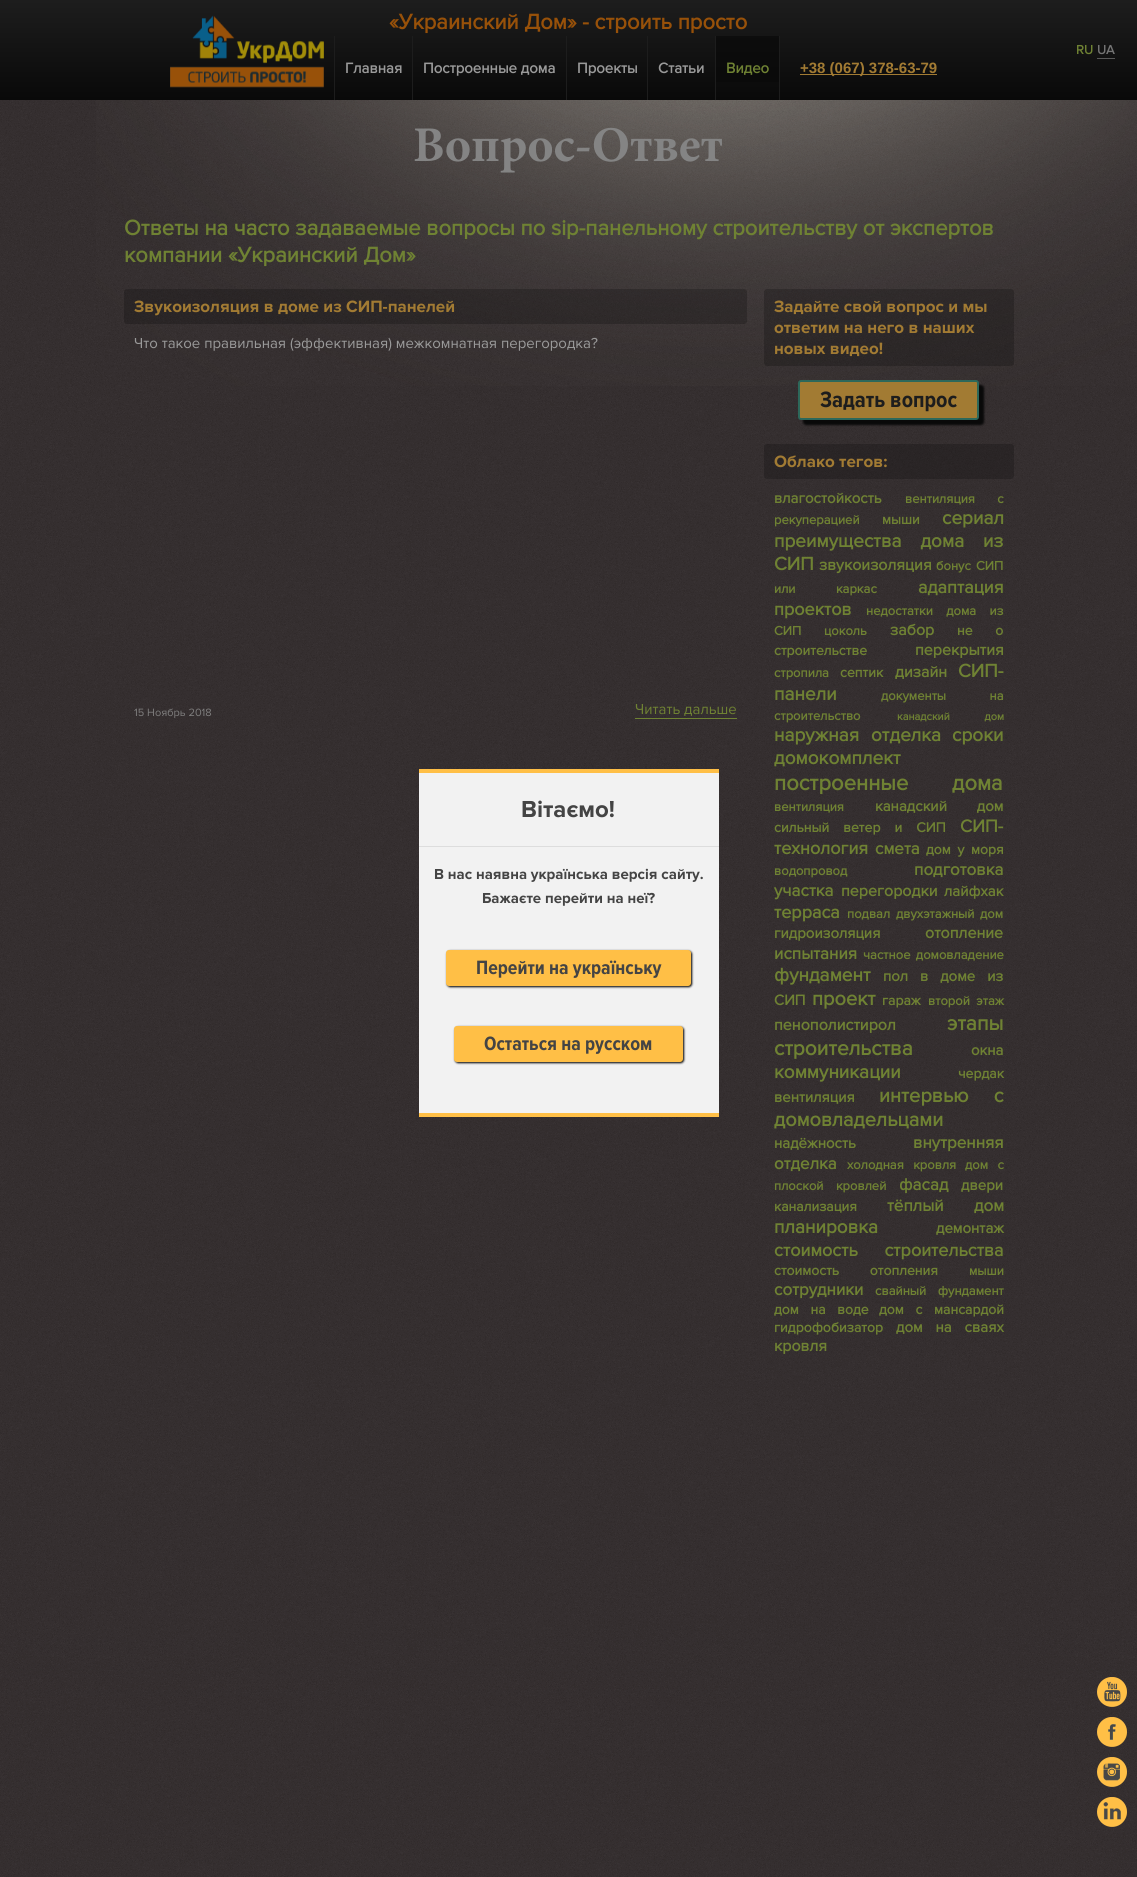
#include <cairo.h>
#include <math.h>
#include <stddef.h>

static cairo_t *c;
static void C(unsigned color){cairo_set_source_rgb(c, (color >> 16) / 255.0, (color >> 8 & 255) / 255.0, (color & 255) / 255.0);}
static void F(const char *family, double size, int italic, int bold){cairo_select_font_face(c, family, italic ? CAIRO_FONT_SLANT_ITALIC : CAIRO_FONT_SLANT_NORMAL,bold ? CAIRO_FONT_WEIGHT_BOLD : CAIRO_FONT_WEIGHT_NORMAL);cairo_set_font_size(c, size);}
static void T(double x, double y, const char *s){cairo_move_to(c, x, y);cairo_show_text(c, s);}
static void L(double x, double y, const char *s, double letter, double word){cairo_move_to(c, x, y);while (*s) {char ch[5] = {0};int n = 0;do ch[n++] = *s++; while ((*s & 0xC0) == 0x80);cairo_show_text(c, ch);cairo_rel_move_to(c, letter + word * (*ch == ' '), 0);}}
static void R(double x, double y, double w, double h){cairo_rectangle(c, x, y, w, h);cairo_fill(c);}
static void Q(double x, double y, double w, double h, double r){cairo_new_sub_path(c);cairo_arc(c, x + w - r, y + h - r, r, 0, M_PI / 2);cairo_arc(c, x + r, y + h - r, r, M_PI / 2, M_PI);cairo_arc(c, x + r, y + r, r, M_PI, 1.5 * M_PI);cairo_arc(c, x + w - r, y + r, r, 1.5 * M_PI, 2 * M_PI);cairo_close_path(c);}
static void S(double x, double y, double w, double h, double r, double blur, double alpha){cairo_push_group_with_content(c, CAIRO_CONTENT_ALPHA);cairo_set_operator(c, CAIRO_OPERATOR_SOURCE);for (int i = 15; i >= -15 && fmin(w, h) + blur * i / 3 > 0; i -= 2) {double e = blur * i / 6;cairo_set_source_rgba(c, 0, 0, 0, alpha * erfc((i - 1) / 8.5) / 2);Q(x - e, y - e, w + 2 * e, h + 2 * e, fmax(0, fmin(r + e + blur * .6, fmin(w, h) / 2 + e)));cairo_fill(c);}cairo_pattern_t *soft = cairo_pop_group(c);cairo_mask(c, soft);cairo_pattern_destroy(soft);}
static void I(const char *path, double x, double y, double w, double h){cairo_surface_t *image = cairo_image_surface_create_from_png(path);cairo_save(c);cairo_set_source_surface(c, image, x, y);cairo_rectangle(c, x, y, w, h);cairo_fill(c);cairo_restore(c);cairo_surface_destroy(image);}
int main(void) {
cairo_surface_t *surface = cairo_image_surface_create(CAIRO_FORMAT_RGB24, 1137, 1877);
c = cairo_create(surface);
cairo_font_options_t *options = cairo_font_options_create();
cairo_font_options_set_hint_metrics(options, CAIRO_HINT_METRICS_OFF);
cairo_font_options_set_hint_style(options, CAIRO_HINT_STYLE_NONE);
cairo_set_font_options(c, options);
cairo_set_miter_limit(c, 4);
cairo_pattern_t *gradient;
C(0xffffff);
cairo_paint(c);
I("1.png",0,100,1137,1777);
gradient = cairo_pattern_create_linear(569,100,569,0);
cairo_pattern_add_color_stop_rgba(gradient,0,0.035,0.035,0.035,1);
cairo_pattern_add_color_stop_rgba(gradient,1,0.114,0.114,0.114,1);
cairo_set_source(c,gradient);
cairo_pattern_destroy(gradient);
R(0,0,1137,100);
F("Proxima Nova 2",22,0,1);
C(0x985109);
T(389,29,"«Украинский Дом» - строить просто");
F("Proxima Nova 2",13,0,1);
C(0x6f8233);
T(1076,54,"RU");
C(0x747474);
T(1097,54,"UA");
C(0x585858);
R(1097,58,18,1);
I("2.png",170,15,154,73);
C(0x1d1d1d);
R(334,36,1,64);
F("Proxima Nova 2",15,0,1);
C(0x9a9a9a);
T(345,73,"Главная");
C(0x1d1d1d);
R(412,36,1,64);
C(0x9a9a9a);
T(423,73,"Построенные дома");
C(0x1d1d1d);
R(566,36,1,64);
C(0x9a9a9a);
T(577,73,"Проекты");
C(0x1d1d1d);
R(647,36,1,64);
C(0x9a9a9a);
T(658,73,"Статьи");
cairo_set_source_rgba(c,0.035,0.035,0.035,0.7);
R(716,36,63,46);
C(0x1d1d1d);
R(779,36,1,64);
R(715,36,1,64);
C(0x6f8233);
T(726,73,"Видео");
C(0xa27b33);
R(800,74,137,1);
F("Liberation Sans",15,0,1);
T(800,73,"+38 (067) 378-63-79");
I("3.png",96,100,1041,286);
I("4.png",414,127,308,46);
F("Proxima Nova 2",22,0,1);
C(0x6f8233);
T(124,235,"Ответы на часто задаваемые вопросы по sip-панельному строительству от экспертов");
T(124,262,"компании «Украинский Дом»");
cairo_set_source_rgba(c,0.035,0.035,0.035,0.25);
Q(124,289,623,35,3);
cairo_fill(c);
F("Proxima Nova",17,0,1);
C(0xa27b33);
T(134,312,"Звукоизоляция в доме из СИП-панелей");
F("Proxima Nova",15,0,0);
C(0x9a9a9a);
T(134,348,"Что такое правильная (эффективная) межкомнатная перегородка?");
F("Proxima Nova",11,0,0);
C(0x7e7d7d);
T(134,716,"15 Ноябрь 2018");
F("Proxima Nova",15,0,0);
C(0x6f8233);
T(635,714,"Читать дальше");
R(635,718,102,1);
cairo_set_source_rgba(c,0.035,0.035,0.035,0.25);
Q(764,289,250,77,3);
cairo_fill(c);
F("Proxima Nova",17,0,1);
C(0xa27b33);
T(774,312,"Задайте свой вопрос и мы");
T(774,333,"ответим на него в наших");
T(774,354,"новых видео!");
C(0x090909);
S(803,385,181,40,3,1,1);
C(0xa27b33);
Q(799,381,179,38,2);
cairo_fill_preserve(c);
C(0x2d685a);
cairo_stroke(c);
F("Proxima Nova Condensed",23,0,1);
C(0x1d1d1d);
T(820,407,"Задать вопрос");
cairo_set_source_rgba(c,0.035,0.035,0.035,0.25);
Q(764,444,250,35,3);
cairo_fill(c);
F("Proxima Nova",17,0,1);
C(0xa27b33);
T(774,467,"Облако тегов:");
F("Proxima Nova 2",15,0,1);
C(0x6f8233);
T(774,503,"влагостойкость");
F("Proxima Nova 2",13,0,1);
L(905,503,"вентиляция с",0,19);
T(774,524,"рекуперацией");
F("Proxima Nova 2",14,0,1);
T(882,524,"мыши");
F("Proxima Nova 2",19,0,1);
T(942,524,"сериал");
L(774,547,"преимущества дома из",0,14);
T(774,570,"СИП");
F("Proxima Nova 2",16,0,1);
T(819,570,"звукоизоляция");
F("Proxima Nova 2",13,0,1);
T(936,570,"бонус");
T(976,570,"СИП");
L(774,593,"или каркас",0,37);
F("Proxima Nova 2",18,0,1);
T(918,593,"адаптация");
T(774,615,"проектов");
F("Proxima Nova 2",13,0,1);
L(866,615,"недостатки дома из",0,10);
T(774,635,"СИП");
T(824,635,"цоколь");
F("Proxima Nova 2",16,0,1);
T(890,635,"забор");
F("Proxima Nova 2",14,0,1);
L(957,635,"не о",0,19);
T(774,655,"строительстве");
F("Proxima Nova 2",16,0,1);
T(915,655,"перекрытия");
F("Proxima Nova 2",13,0,1);
T(774,677,"стропила");
F("Proxima Nova 2",14,0,1);
T(840,677,"септик");
F("Proxima Nova 2",16,0,1);
T(895,677,"дизайн");
F("Proxima Nova 2",19,0,1);
T(958,677,"СИП-");
T(774,700,"панели");
F("Proxima Nova 2",13,0,1);
L(881,700,"документы на",0,40);
T(774,720,"строительство");
F("Proxima Nova 2",11,0,1);
L(897,720,"канадский дом",0,32);
F("Proxima Nova 2",19,0,1);
L(774,741,"наружная отделка",0,7);
T(952,741,"сроки");
T(774,764,"домокомплект");
F("Proxima Nova 2",22,0,1);
L(774,790,"построенные дома",0,38);
F("Proxima Nova 2",13,0,1);
T(774,811,"вентиляция");
F("Proxima Nova 2",15,0,1);
L(875,811,"канадский дом",0,26);
F("Proxima Nova 2",14,0,1);
L(774,832,"сильный ветер и СИП",0,10.5);
F("Proxima Nova 2",18,0,1);
T(960,832,"СИП-");
T(774,854,"технология");
F("Proxima Nova 2",17,0,1);
T(875,854,"смета");
F("Proxima Nova 2",14,0,1);
L(926,854,"дом у моря",0,3);
F("Proxima Nova 2",13,0,1);
T(774,875,"водопровод");
F("Proxima Nova 2",17,0,1);
T(914,875,"подготовка");
T(774,896,"участка");
F("Proxima Nova 2",16,0,1);
T(841,896,"перегородки");
F("Proxima Nova 2",15,0,1);
T(944,896,"лайфхак");
F("Proxima Nova 2",18,0,1);
T(774,918,"терраса");
F("Proxima Nova 2",13,0,1);
T(847,918,"подвал");
L(896,918,"двухэтажный дом",0,2);
F("Proxima Nova 2",15,0,1);
T(774,938,"гидроизоляция");
F("Proxima Nova 2",16,0,1);
T(925,938,"отопление");
F("Proxima Nova 2",17,0,1);
T(774,959,"испытания");
F("Proxima Nova 2",13,0,1);
L(863,959,"частное домовладение",0,2);
F("Proxima Nova 2",19,0,1);
T(774,981,"фундамент");
F("Proxima Nova 2",15,0,1);
L(883,981,"пол в доме из",0,8);
T(774,1005,"СИП");
F("Proxima Nova 2",20,0,1);
T(812,1005,"проект");
F("Proxima Nova 2",14,0,1);
T(882,1005,"гараж");
F("Proxima Nova 2",13,0,1);
L(928,1005,"второй этаж",0,3);
F("Proxima Nova 2",16,0,1);
T(774,1030,"пенополистирол");
F("Proxima Nova 2",21,0,1);
T(947,1030,"этапы");
T(774,1055,"строительства");
F("Proxima Nova 2",15,0,1);
T(971,1055,"окна");
F("Proxima Nova 2",19,0,1);
T(774,1078,"коммуникации");
F("Proxima Nova 2",14,0,1);
T(958,1078,"чердак");
F("Proxima Nova 2",15,0,1);
T(774,1102,"вентиляция");
F("Proxima Nova 2",20,0,1);
L(879,1102,"интервью с",0,20);
T(774,1126,"домовладельцами");
F("Proxima Nova 2",15,0,1);
T(774,1148,"надёжность");
F("Proxima Nova 2",17,0,1);
T(913,1148,"внутренняя");
T(774,1169,"отделка");
F("Proxima Nova 2",13,0,1);
L(847,1169,"холодная кровля",0,6);
L(965,1169,"дом с",0,6);
L(774,1190,"плоской кровлей",0,9);
F("Proxima Nova 2",17,0,1);
T(899,1190,"фасад");
F("Proxima Nova 2",15,0,1);
T(961,1190,"двери");
F("Proxima Nova 2",14,0,1);
T(774,1211,"канализация");
F("Proxima Nova 2",17,0,1);
L(887,1211,"тёплый дом",0,26);
F("Proxima Nova 2",19,0,1);
T(774,1233,"планировка");
F("Proxima Nova 2",15,0,1);
T(936,1233,"демонтаж");
F("Proxima Nova 2",18,0,1);
L(774,1256,"стоимость строительства",0,22);
F("Proxima Nova 2",14,0,1);
L(774,1275,"стоимость отопления",0,27);
F("Proxima Nova 2",13,0,1);
T(969,1275,"мыши");
F("Proxima Nova 2",17,0,1);
T(774,1295,"сотрудники");
F("Proxima Nova 2",13,0,1);
L(875,1295,"свайный фундамент",0,8);
F("Proxima Nova 2",14,0,1);
L(774,1314,"дом на воде",0,8);
L(879,1314,"дом с мансардой",0,8);
T(774,1332,"гидрофобизатор");
F("Proxima Nova 2",15,0,1);
L(896,1332,"дом на сваях",0,9);
F("Proxima Nova 2",16,0,1);
T(774,1351,"кровля");
C(0xf2f2f2);
R(419,773,300,340);
C(0xffbf46);
R(419,769,300,4);
R(419,1113,300,4);
C(0xdddddd);
R(419,846,300,1);
F("Proxima Nova",24,0,1);
C(0x444444);
T(521,817,"Вітаємо!");
F("Proxima Nova",15,0,1);
T(434,879,"В нас наявна українська версія сайту.");
T(482,903,"Бажаєте перейти на неї?");
C(0x000000);
S(447,951,245,36,3,1,1);
C(0xffbf46);
Q(446,950,245,36,3);
cairo_fill(c);
F("Proxima Nova Condensed",20,0,1);
C(0x444444);
T(476,974,"Перейти на українську");
C(0x000000);
S(455,1027,229,36,3,1,1);
C(0xffbf46);
Q(454,1026,229,36,3);
cairo_fill(c);
C(0x444444);
T(484,1050,"Остаться на русском");
I("5.png",1097,1677,30,30);
I("6.png",1097,1717,30,30);
I("7.png",1097,1757,30,30);
I("8.png",1097,1797,30,30);
cairo_surface_write_to_png(surface, "o.png");
cairo_font_options_destroy(options);
cairo_destroy(c);
cairo_surface_destroy(surface);
return 0;
}
